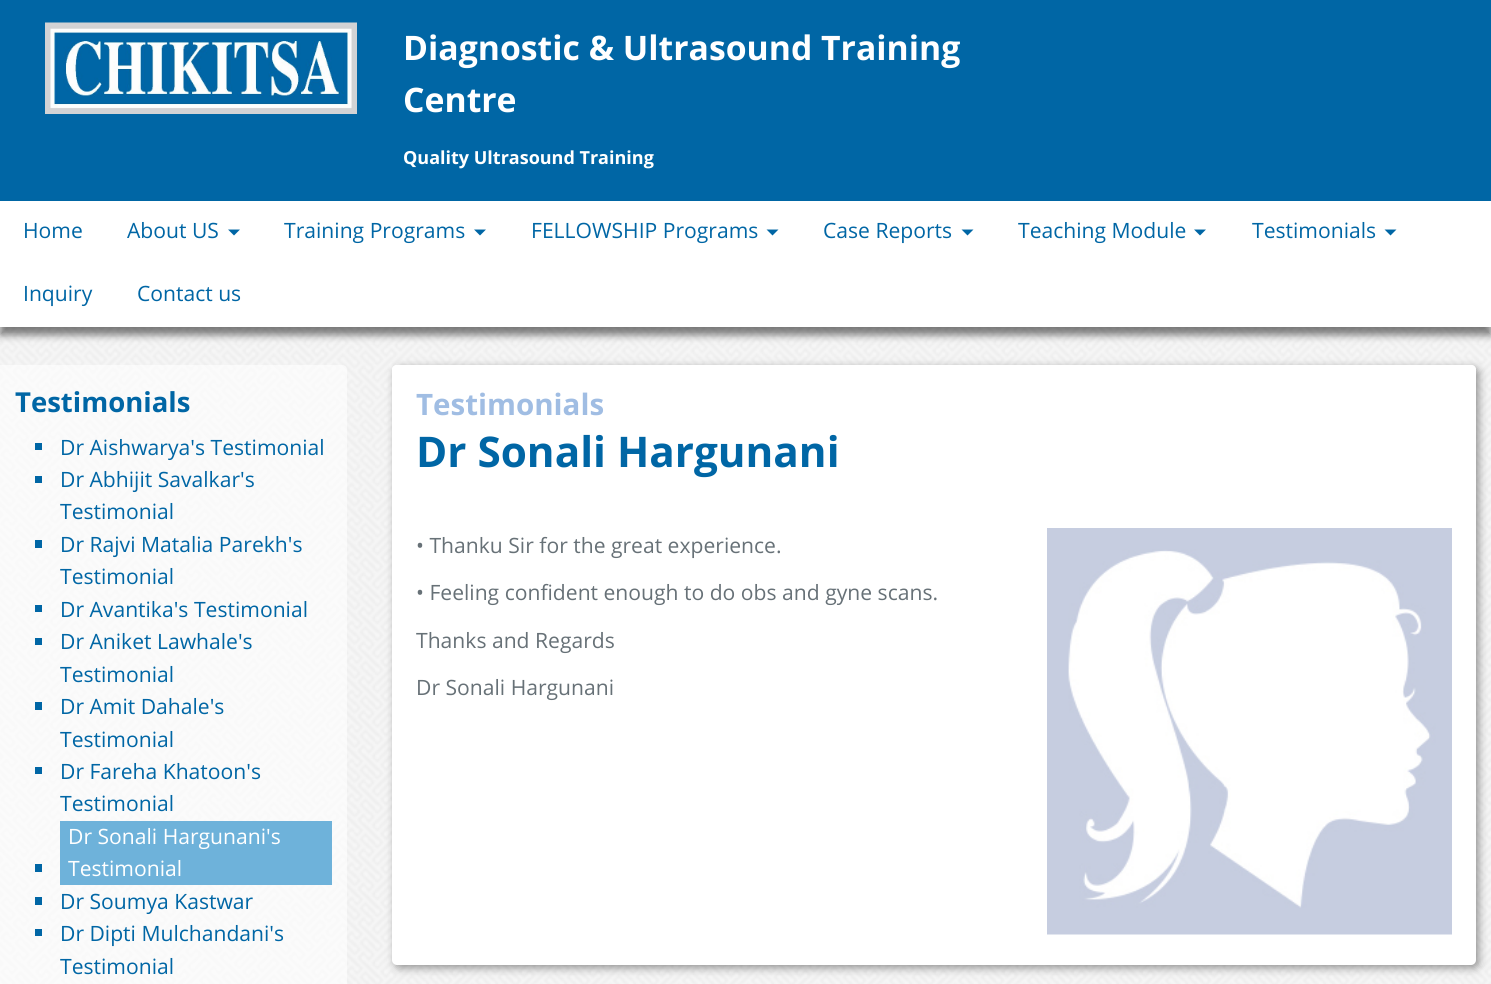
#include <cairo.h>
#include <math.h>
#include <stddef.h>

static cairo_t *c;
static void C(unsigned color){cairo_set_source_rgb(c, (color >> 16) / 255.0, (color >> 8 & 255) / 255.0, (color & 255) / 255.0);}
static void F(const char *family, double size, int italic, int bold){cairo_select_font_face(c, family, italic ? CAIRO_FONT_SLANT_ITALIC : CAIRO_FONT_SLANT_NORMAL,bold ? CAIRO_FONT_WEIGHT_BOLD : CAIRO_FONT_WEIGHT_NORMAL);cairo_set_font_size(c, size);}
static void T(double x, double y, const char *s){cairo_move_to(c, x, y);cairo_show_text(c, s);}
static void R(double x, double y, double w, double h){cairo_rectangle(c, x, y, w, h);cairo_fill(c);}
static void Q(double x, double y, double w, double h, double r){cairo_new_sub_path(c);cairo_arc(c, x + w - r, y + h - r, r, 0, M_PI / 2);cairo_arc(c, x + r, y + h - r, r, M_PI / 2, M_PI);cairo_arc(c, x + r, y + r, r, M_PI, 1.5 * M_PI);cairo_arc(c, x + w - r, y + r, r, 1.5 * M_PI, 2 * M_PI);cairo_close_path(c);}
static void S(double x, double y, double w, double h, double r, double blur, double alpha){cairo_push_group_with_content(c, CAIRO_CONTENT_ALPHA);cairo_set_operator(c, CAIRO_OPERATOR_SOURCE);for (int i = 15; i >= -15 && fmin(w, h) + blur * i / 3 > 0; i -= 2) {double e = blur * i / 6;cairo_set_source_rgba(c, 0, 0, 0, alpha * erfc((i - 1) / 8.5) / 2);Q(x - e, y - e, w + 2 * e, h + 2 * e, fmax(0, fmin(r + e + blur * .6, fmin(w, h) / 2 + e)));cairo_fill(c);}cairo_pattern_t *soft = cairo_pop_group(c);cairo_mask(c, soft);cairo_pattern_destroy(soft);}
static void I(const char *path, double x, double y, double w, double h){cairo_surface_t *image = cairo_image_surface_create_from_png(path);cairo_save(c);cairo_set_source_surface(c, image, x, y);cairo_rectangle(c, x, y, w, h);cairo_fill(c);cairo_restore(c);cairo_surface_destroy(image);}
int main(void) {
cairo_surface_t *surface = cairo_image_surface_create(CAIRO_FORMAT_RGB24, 1491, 984);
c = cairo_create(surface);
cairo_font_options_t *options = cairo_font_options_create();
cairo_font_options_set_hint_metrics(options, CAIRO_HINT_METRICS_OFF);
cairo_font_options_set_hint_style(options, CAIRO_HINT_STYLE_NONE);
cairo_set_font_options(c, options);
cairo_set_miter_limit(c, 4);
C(0xffffff);
cairo_paint(c);
I("1.png",0,327,1491,657);
C(0x0066a5);
R(0,0,1491,201);
I("2.png",45,22,312,92);
F("Open Sans",33.75,0,1);
C(0xffffff);
T(403,60,"Diagnostic & Ultrasound Training");
T(403,112,"Centre");
F("Open Sans",18,0,1);
T(403,164,"Quality Ultrasound Training");
C(0x000000);
S(0,209,1491,126,0,4,.5);
C(0xffffff);
R(0,201,1491,126);
F("Open Sans",21.1,0,0);
C(0x0066a5);
T(23,238,"Home");
T(127,238,"About US");
cairo_new_path(c);
cairo_move_to(c,228,229.5);
cairo_line_to(c,240,229.5);
cairo_line_to(c,234,235.5);
cairo_close_path(c);
cairo_fill(c);
T(284,238,"Training Programs");
cairo_new_path(c);
cairo_move_to(c,474,229.5);
cairo_line_to(c,486,229.5);
cairo_line_to(c,480,235.5);
cairo_close_path(c);
cairo_fill(c);
T(531,238,"FELLOWSHIP Programs");
cairo_new_path(c);
cairo_move_to(c,766.5,229.5);
cairo_line_to(c,778.5,229.5);
cairo_line_to(c,772.5,235.5);
cairo_close_path(c);
cairo_fill(c);
T(823,238,"Case Reports");
cairo_new_path(c);
cairo_move_to(c,961.5,229.5);
cairo_line_to(c,973.5,229.5);
cairo_line_to(c,967.5,235.5);
cairo_close_path(c);
cairo_fill(c);
T(1018,238,"Teaching Module");
cairo_new_path(c);
cairo_move_to(c,1194,229.5);
cairo_line_to(c,1206,229.5);
cairo_line_to(c,1200,235.5);
cairo_close_path(c);
cairo_fill(c);
T(1252,238,"Testimonials");
cairo_new_path(c);
cairo_move_to(c,1384.5,229.5);
cairo_line_to(c,1396.5,229.5);
cairo_line_to(c,1390.5,235.5);
cairo_close_path(c);
cairo_fill(c);
T(23,301,"Inquiry");
T(137,301,"Contact us");
cairo_set_source_rgba(c,1,1,1,0.6);
cairo_new_path(c);
cairo_move_to(c,-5,365);
cairo_line_to(c,342,365);
cairo_curve_to(c,345,365,347,367,347,370);
cairo_line_to(c,347,984);
cairo_curve_to(c,347,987,345,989,342,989);
cairo_line_to(c,-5,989);
cairo_close_path(c);
cairo_fill(c);
F("Open Sans",27.5,0,1);
C(0x0066a5);
T(15,412,"Testimonials");
R(35,443,7,7);
F("Open Sans",21.1,0,0);
T(60,455,"Dr Aishwarya's Testimonial");
R(35,476,7,7);
T(60,487,"Dr Abhijit Savalkar's");
T(60,519,"Testimonial");
R(35,540,7,8);
T(60,552,"Dr Rajvi Matalia Parekh's");
T(60,584,"Testimonial");
R(35,605,7,7);
T(60,617,"Dr Avantika's Testimonial");
R(35,638,7,7);
T(60,649,"Dr Aniket Lawhale's");
T(60,682,"Testimonial");
R(35,702,7,8);
T(60,714,"Dr Amit Dahale's");
T(60,747,"Testimonial");
R(35,767,7,7);
T(60,779,"Dr Fareha Khatoon's");
T(60,811,"Testimonial");
R(35,864,7,8);
C(0x6eb2da);
R(60,821,272,64);
C(0xffffff);
T(68,844,"Dr Sonali Hargunani's");
T(68,876,"Testimonial");
C(0x0066a5);
R(35,897,7,8);
T(60,909,"Dr Soumya Kastwar");
R(35,929,7,7);
T(60,941,"Dr Dipti Mulchandani's");
T(60,974,"Testimonial");
C(0x000000);
S(395,368,1084,600,5,4.5,.4);
C(0xffffff);
Q(392,365,1084,600,5);
cairo_fill(c);
cairo_new_path(c);
cairo_move_to(c,397,365);
cairo_line_to(c,1471,365);
cairo_curve_to(c,1474,365,1476,367,1476,370);
cairo_line_to(c,1476,956);
cairo_curve_to(c,1476,957.5,1474.5,959,1473,959);
cairo_line_to(c,395,959);
cairo_curve_to(c,393.5,959,392,957.5,392,956);
cairo_line_to(c,392,370);
cairo_curve_to(c,392,367,394,365,397,365);
cairo_close_path(c);
cairo_fill(c);
F("Open Sans",29.5,0,1);
C(0xa0bde3);
T(416,415,"Testimonials");
F("Open Sans",42.25,0,1);
C(0x0066a5);
T(416,467,"Dr Sonali Hargunani");
F("Open Sans",21.1,0,0);
C(0x677177);
T(416,553,"• Thanku Sir for the great experience.");
T(416,600,"• Feeling confident enough to do obs and gyne scans.");
T(416,648,"Thanks and Regards");
T(416,695,"Dr Sonali Hargunani");
I("3.png",1047,528,405,407);
cairo_surface_write_to_png(surface, "o.png");
cairo_font_options_destroy(options);
cairo_destroy(c);
cairo_surface_destroy(surface);
return 0;
}
